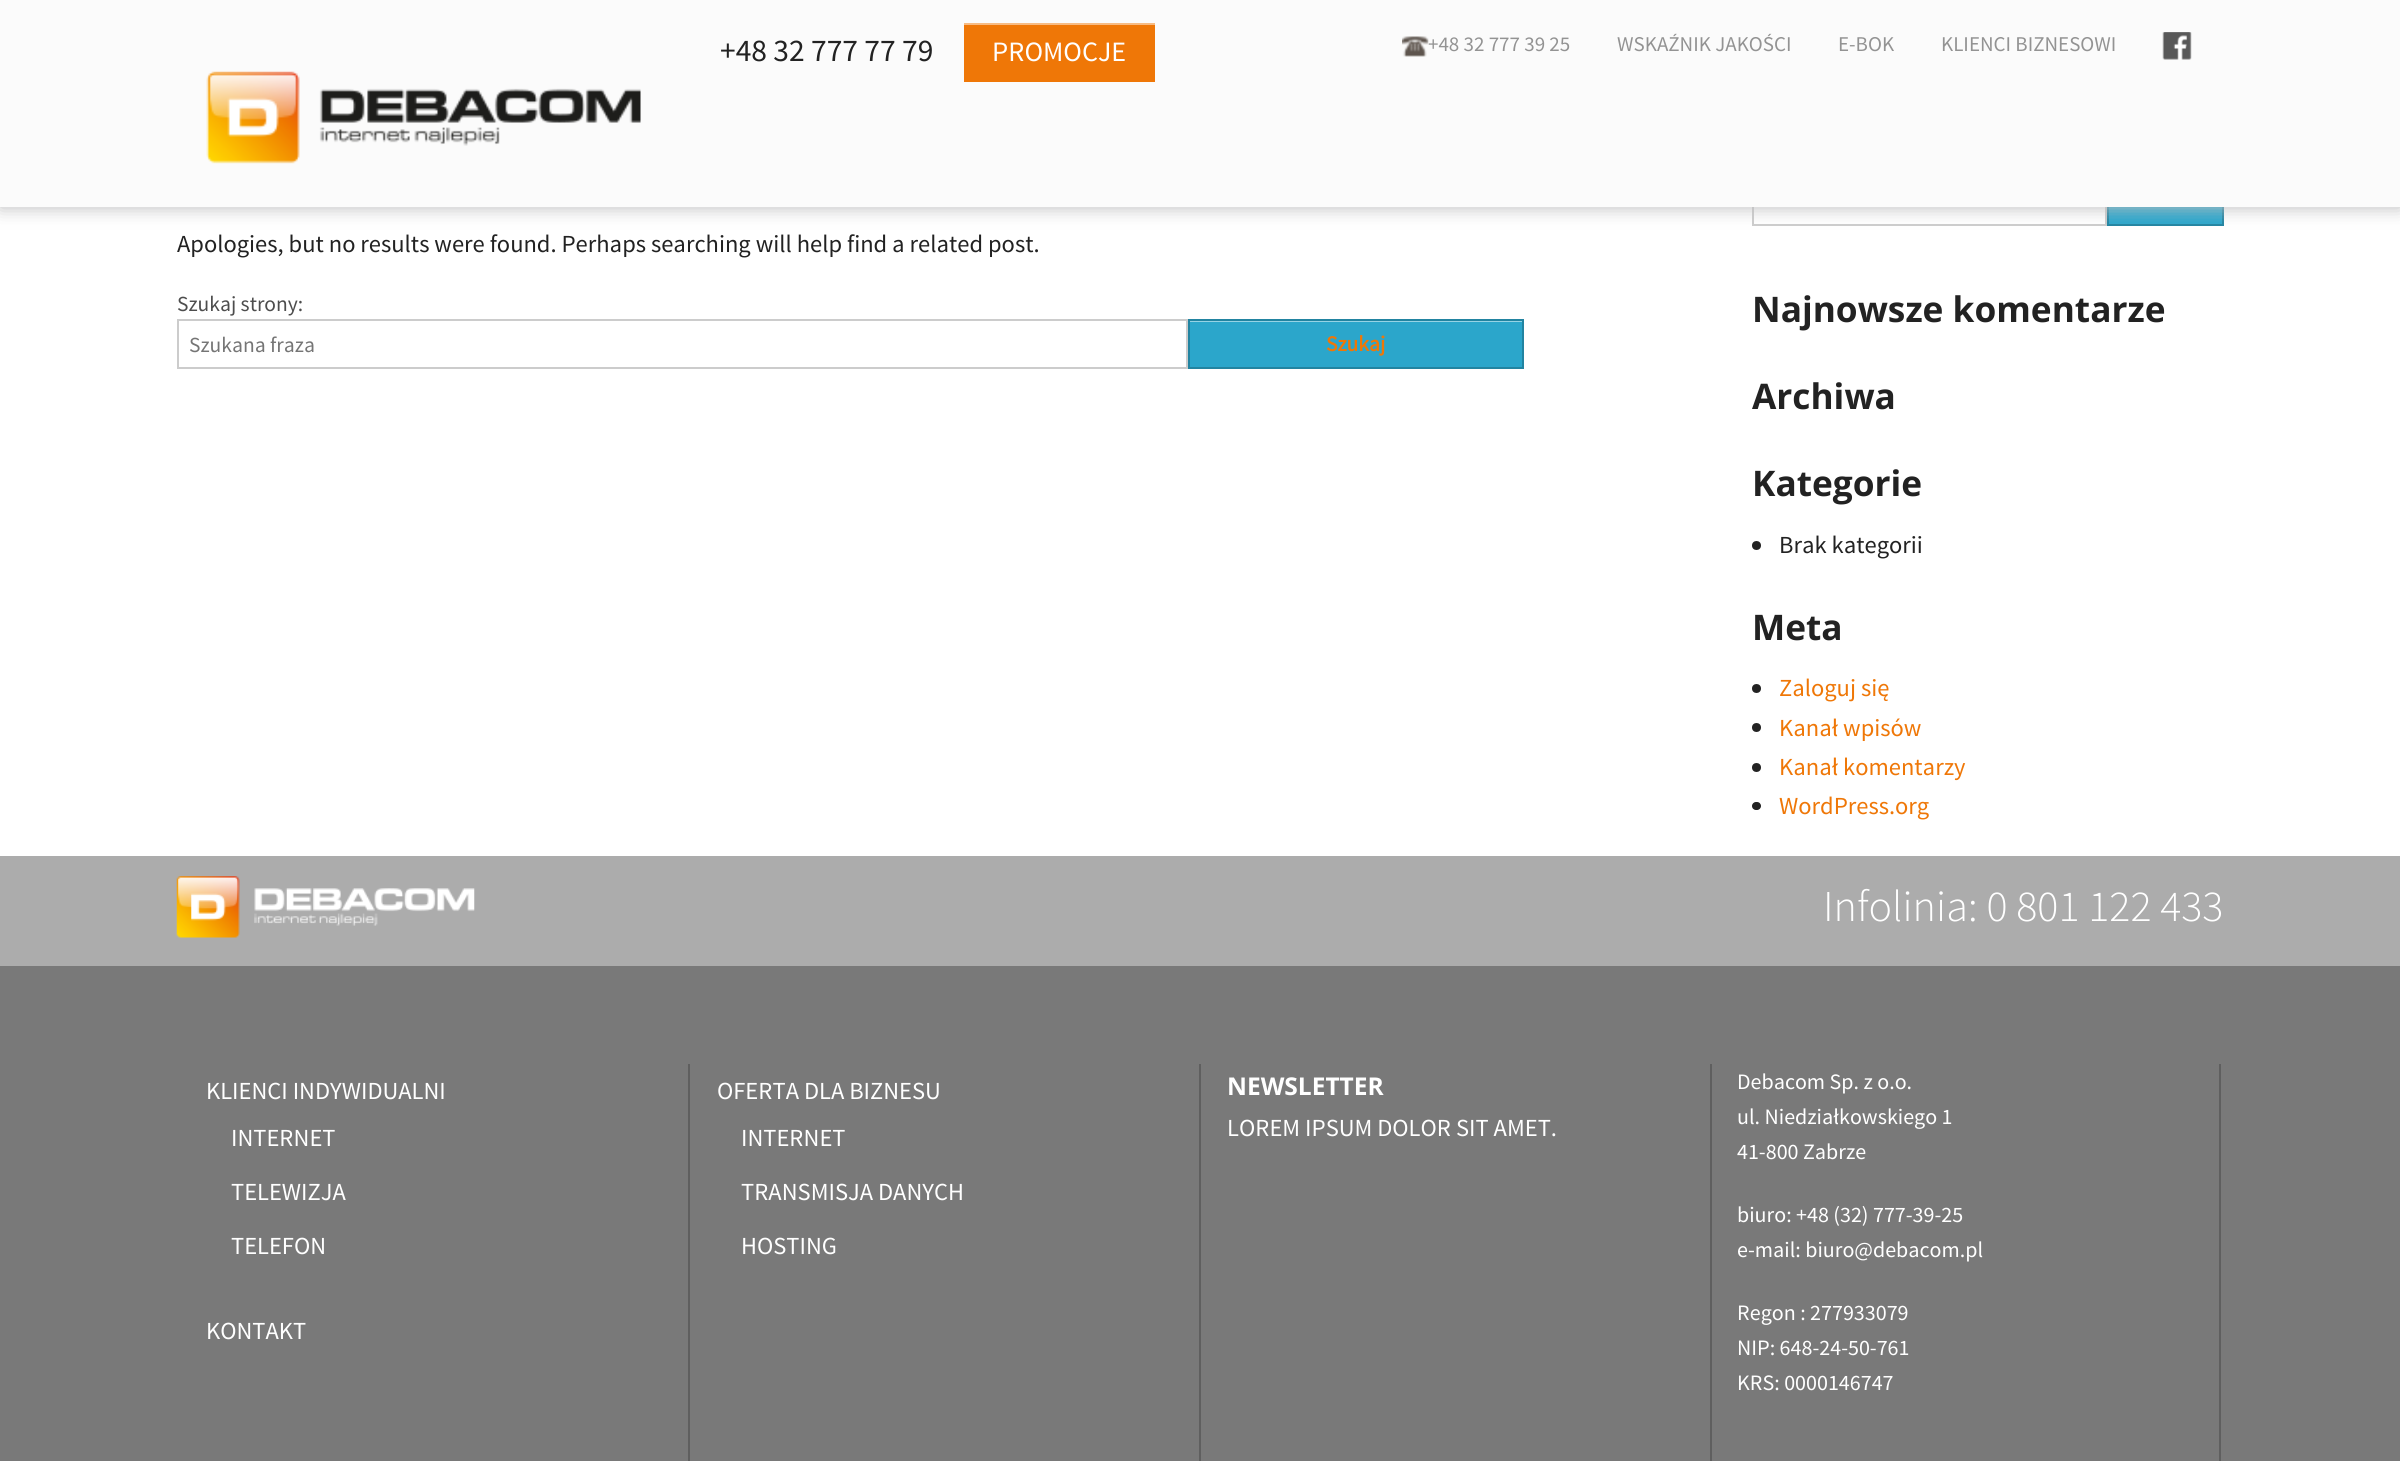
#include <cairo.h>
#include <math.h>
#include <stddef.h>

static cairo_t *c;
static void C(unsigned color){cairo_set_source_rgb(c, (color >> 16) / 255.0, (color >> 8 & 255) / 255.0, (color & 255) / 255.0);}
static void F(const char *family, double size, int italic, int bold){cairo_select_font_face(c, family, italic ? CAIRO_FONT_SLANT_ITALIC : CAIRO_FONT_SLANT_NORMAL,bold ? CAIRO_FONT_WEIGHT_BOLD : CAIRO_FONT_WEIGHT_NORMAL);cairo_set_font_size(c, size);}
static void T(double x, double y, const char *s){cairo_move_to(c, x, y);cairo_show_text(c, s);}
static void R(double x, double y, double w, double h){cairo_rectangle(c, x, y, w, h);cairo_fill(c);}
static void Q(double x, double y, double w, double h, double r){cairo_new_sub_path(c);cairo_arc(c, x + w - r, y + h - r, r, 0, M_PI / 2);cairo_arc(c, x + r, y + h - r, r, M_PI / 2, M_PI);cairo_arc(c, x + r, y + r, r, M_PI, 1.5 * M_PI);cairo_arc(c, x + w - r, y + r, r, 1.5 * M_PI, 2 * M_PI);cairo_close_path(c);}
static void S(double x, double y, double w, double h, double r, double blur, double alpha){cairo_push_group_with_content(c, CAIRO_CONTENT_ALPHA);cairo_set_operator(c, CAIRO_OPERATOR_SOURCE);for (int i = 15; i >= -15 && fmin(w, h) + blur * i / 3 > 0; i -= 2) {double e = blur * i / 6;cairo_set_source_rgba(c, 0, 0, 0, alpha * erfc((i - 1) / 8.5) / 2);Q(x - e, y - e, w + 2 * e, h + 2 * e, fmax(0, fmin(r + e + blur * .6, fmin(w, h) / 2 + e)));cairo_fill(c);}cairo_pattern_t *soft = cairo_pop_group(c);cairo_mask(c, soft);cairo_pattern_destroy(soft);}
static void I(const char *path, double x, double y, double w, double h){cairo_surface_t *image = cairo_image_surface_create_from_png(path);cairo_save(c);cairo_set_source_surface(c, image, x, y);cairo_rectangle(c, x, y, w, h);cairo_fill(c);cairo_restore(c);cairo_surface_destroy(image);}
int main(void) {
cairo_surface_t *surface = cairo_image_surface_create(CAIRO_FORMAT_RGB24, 2400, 1461);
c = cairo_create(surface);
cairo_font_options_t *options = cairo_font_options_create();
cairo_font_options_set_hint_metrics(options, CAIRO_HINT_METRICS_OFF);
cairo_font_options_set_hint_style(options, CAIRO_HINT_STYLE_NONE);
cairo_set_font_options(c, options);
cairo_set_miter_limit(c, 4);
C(0xffffff);
cairo_paint(c);
cairo_rectangle(c,1753,178,353,47);
C(0xcccccc);
cairo_stroke(c);
C(0x2ba6cb);
R(2109,207,113,17);
cairo_rectangle(c,2108,178,115,47);
C(0x2284a1);
cairo_stroke(c);
C(0xbebebf);
S(0,2,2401,206,0,9,1);
C(0xfbfbfb);
R(0,0,2400,207);
F("Source Sans Pro",31.5,0,0);
C(0x222222);
T(720,61,"+48 32 777 77 79");
C(0xef7707);
R(964,25,191,57);
C(0xf7bb83);
R(964,23,191,2);
F("Source Sans Pro",28,0,0);
C(0xffffff);
T(992,61,"PROMOCJE");
I("1.png",1402,36,27,21);
F("Source Sans Pro",21,0,0);
C(0x939393);
T(1428,51,"+48 32 777 39 25");
T(1617,51,"WSKAŹNIK JAKOŚCI");
T(1838,51,"E-BOK");
T(1941,51,"KLIENCI BIZNESOWI");
I("2.png",2162,32,30,28);
I("3.png",206,71,435,93);
F("Source Sans Pro",24.5,0,0);
C(0x222222);
T(177,252,"Apologies, but no results were found. Perhaps searching will help find a related post.");
F("Source Sans Pro",21.5,0,0);
C(0x4d4d4d);
T(177,311,"Szukaj strony:");
cairo_rectangle(c,178,320,1009,48);
C(0xcccccc);
cairo_stroke(c);
C(0x757575);
T(189,352,"Szukana fraza");
C(0x2ba6cb);
R(1190,322,332,45);
C(0x95d3e5);
R(1190,321,333,1);
cairo_rectangle(c,1189,320,334,48);
C(0x2284a1);
cairo_stroke(c);
F("Source Sans Pro",21.5,0,1);
C(0xef7707);
T(1326,351,"Szukaj");
F("Open Sans",35.25,0,1);
C(0x222222);
T(1752,322,"Najnowsze komentarze");
T(1752,409,"Archiwa");
T(1752,496,"Kategorie");
cairo_new_path(c);
cairo_arc(c,1756.5,545.5,4.5,0,2 * M_PI);
cairo_fill(c);
F("Source Sans Pro",24.5,0,0);
T(1779,553,"Brak kategorii");
F("Open Sans",35.25,0,1);
T(1752,640,"Meta");
cairo_new_path(c);
cairo_arc(c,1756.5,688.5,4.5,0,2 * M_PI);
cairo_fill(c);
F("Source Sans Pro",24.5,0,0);
C(0xef7707);
T(1779,696,"Zaloguj się");
C(0x222222);
cairo_new_path(c);
cairo_arc(c,1756.5,727.5,4.5,0,2 * M_PI);
cairo_fill(c);
C(0xef7707);
T(1779,736,"Kanał wpisów");
C(0x222222);
cairo_new_path(c);
cairo_arc(c,1756.5,767.5,4.5,0,2 * M_PI);
cairo_fill(c);
C(0xef7707);
T(1779,775,"Kanał komentarzy");
C(0x222222);
Q(1752,802,9,8,4);
cairo_fill(c);
C(0xef7707);
T(1779,814,"WordPress.org");
C(0xacacac);
R(0,856,2400,110);
I("4.png",176,876,299,62);
F("Source Sans Pro Light",44,0,0);
C(0xffffff);
T(1823,921,"Infolinia: 0 801 122 433");
C(0x797979);
R(0,966,2400,495);
C(0x5f5f5f);
R(688,1064,2,397);
F("Source Sans Pro",24.5,0,0);
C(0xffffff);
T(206,1099,"KLIENCI INDYWIDUALNI");
T(231,1146,"INTERNET");
T(231,1200,"TELEWIZJA");
T(231,1254,"TELEFON");
T(206,1339,"KONTAKT");
C(0x5f5f5f);
R(1199,1064,2,397);
C(0xffffff);
T(717,1099,"OFERTA DLA BIZNESU");
T(741,1146,"INTERNET");
T(741,1200,"TRANSMISJA DANYCH");
T(741,1254,"HOSTING");
C(0x5f5f5f);
R(1710,1064,2,397);
F("Open Sans",24.5,0,1);
C(0xffffff);
T(1227,1095,"NEWSLETTER");
F("Source Sans Pro",24.5,0,0);
T(1227,1136,"LOREM IPSUM DOLOR SIT AMET.");
C(0x5f5f5f);
R(2219,1064,2,397);
F("Source Sans Pro",22,0,0);
C(0xffffff);
T(1737,1089,"Debacom Sp. z o.o.");
T(1737,1124,"ul. Niedziałkowskiego 1");
T(1737,1159,"41-800 Zabrze");
T(1737,1222,"biuro: +48 (32) 777-39-25");
T(1737,1257,"e-mail: biuro@debacom.pl");
T(1737,1320,"Regon : 277933079");
T(1737,1355,"NIP: 648-24-50-761");
T(1737,1390,"KRS: 0000146747");
cairo_surface_write_to_png(surface, "o.png");
cairo_font_options_destroy(options);
cairo_destroy(c);
cairo_surface_destroy(surface);
return 0;
}
